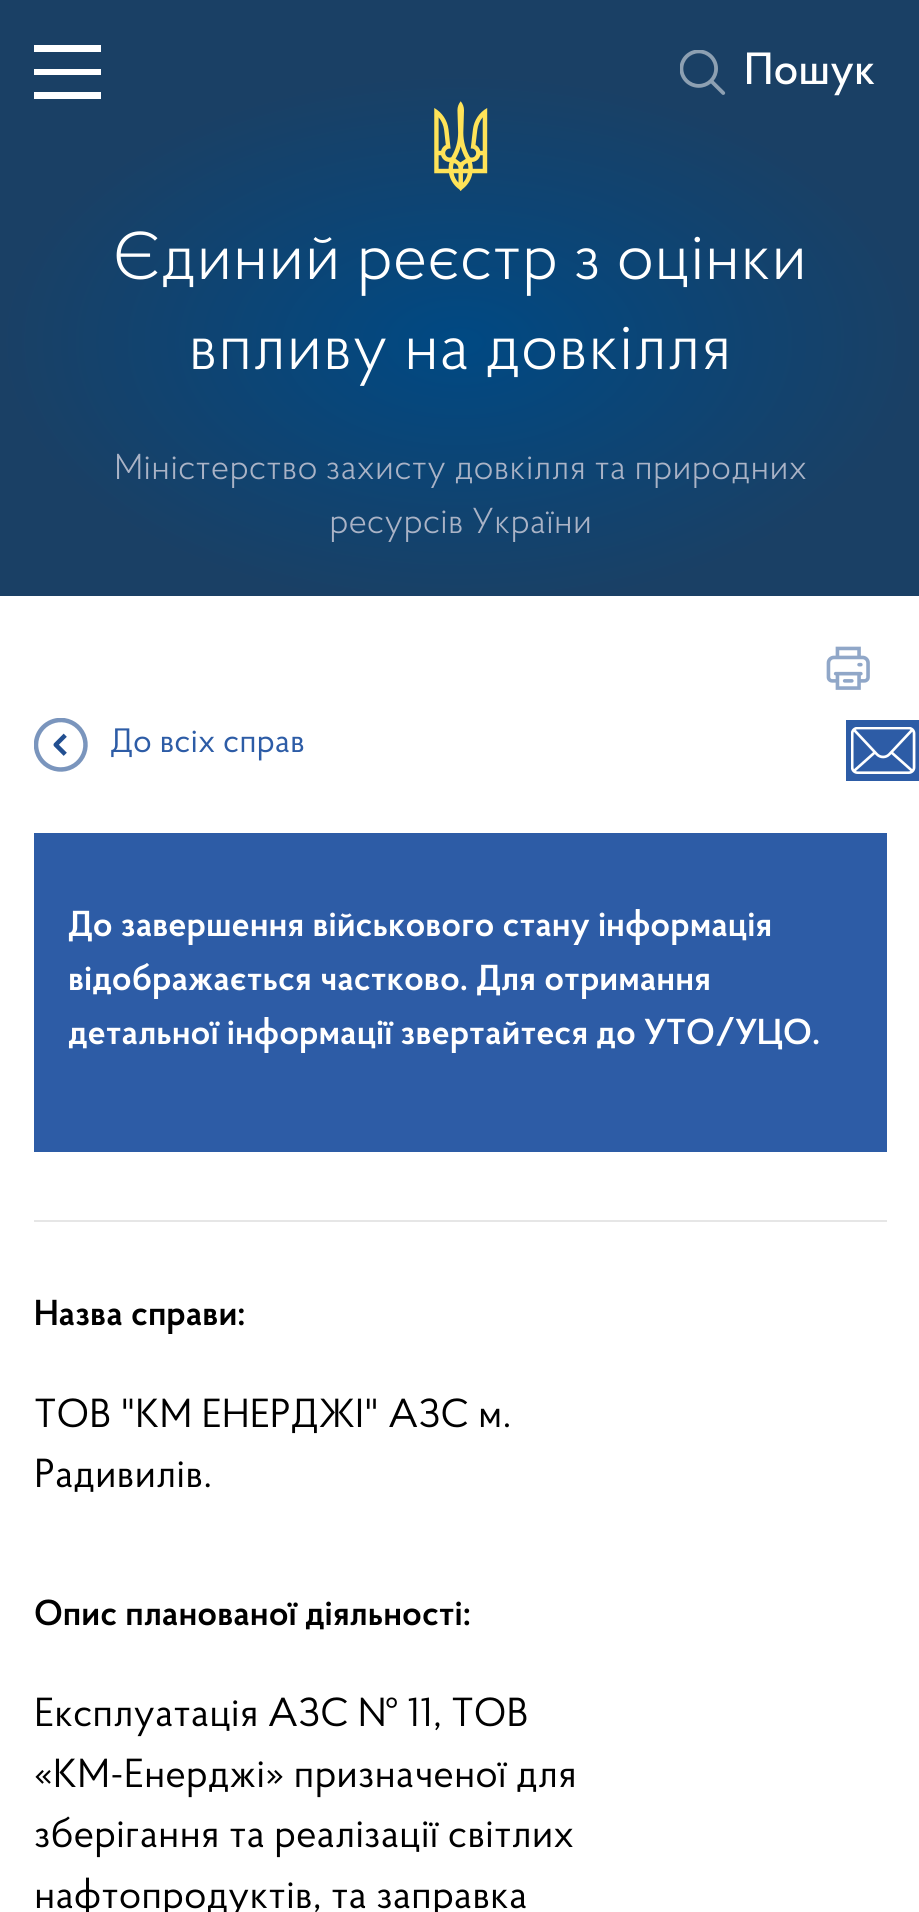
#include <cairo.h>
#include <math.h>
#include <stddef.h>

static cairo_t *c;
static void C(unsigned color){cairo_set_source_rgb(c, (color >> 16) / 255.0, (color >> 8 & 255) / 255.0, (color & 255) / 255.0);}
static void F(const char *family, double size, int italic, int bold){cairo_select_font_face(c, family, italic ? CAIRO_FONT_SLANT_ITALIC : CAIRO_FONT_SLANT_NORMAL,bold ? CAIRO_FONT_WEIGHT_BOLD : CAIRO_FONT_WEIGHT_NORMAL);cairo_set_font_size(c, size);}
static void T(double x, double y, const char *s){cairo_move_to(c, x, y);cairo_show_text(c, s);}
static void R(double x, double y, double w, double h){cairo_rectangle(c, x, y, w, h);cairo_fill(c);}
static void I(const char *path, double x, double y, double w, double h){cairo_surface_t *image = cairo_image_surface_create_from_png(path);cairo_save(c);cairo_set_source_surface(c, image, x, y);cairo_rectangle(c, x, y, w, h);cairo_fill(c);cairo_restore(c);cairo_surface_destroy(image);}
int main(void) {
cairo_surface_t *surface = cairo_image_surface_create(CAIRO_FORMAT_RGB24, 919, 1912);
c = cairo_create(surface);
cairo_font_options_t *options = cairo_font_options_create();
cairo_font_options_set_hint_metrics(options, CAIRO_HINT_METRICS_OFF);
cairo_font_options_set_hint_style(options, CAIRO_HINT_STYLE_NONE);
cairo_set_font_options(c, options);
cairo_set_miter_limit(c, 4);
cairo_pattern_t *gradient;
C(0xffffff);
cairo_paint(c);
gradient = cairo_pattern_create_radial(0,0,0,0,0,1);
cairo_pattern_set_matrix(gradient, &(cairo_matrix_t){1.0 / 460, 0, 0, 1.0 / 269, -1.0 * 460 / 460, -1.0 * 342 / 269});
cairo_pattern_add_color_stop_rgba(gradient,0,0,0.286,0.514,1);
cairo_pattern_add_color_stop_rgba(gradient,1,0.102,0.251,0.396,1);
cairo_set_source(c,gradient);
cairo_pattern_destroy(gradient);
R(0,0,919,596);
I("1.png",680,50,46,45);
F("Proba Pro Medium",45,0,0);
C(0xffffff);
T(744,84,"Пошук");
R(34,45,67,7);
R(34,69,67,6);
R(34,92,67,7);
I("2.png",434,101,54,90);
F("Proba Pro Light",67.5,0,0);
T(113,279,"Єдиний реєстр з оцінки");
T(188,369,"впливу на довкілля");
F("Proba Pro Light",36,0,0);
C(0xaab3c6);
T(114,479,"Міністерство захисту довкілля та природних");
T(329,533,"ресурсів України");
I("3.png",826,646,44,44);
I("4.png",34,718,54,54);
F("Proba Pro",33.75,0,0);
C(0x2d5ca6);
T(110,752,"До всіх справ");
R(34,833,853,319);
F("Proba Pro SemiBold",36,0,0);
C(0xffffff);
T(68,936,"До завершення військового стану інформація");
T(68,990,"відображається частково. Для отримання");
T(68,1044,"детальної інформації звертайтеся до УТО/УЦО.");
C(0xe6e6e6);
R(34,1220,853,2);
C(0x000000);
T(34,1325,"Назва справи:");
F("Proba Pro",40.5,0,0);
T(34,1427,"ТОВ \"КМ ЕНЕРДЖІ\" АЗС м.");
T(34,1487,"Радивилів.");
F("Proba Pro SemiBold",36,0,0);
T(34,1625,"Опис планованої діяльності:");
F("Proba Pro",40.5,0,0);
T(34,1726,"Експлуатація АЗС № 11, ТОВ");
T(34,1787,"«КМ-Енерджі» призначеної для");
T(34,1847,"зберігання та реалізації світлих");
T(34,1908,"нафтопродуктів, та заправка");
C(0x2d5ca6);
R(846,720,73,61);
I("5.png",851,727,65,47);
cairo_surface_write_to_png(surface, "o.png");
cairo_font_options_destroy(options);
cairo_destroy(c);
cairo_surface_destroy(surface);
return 0;
}
